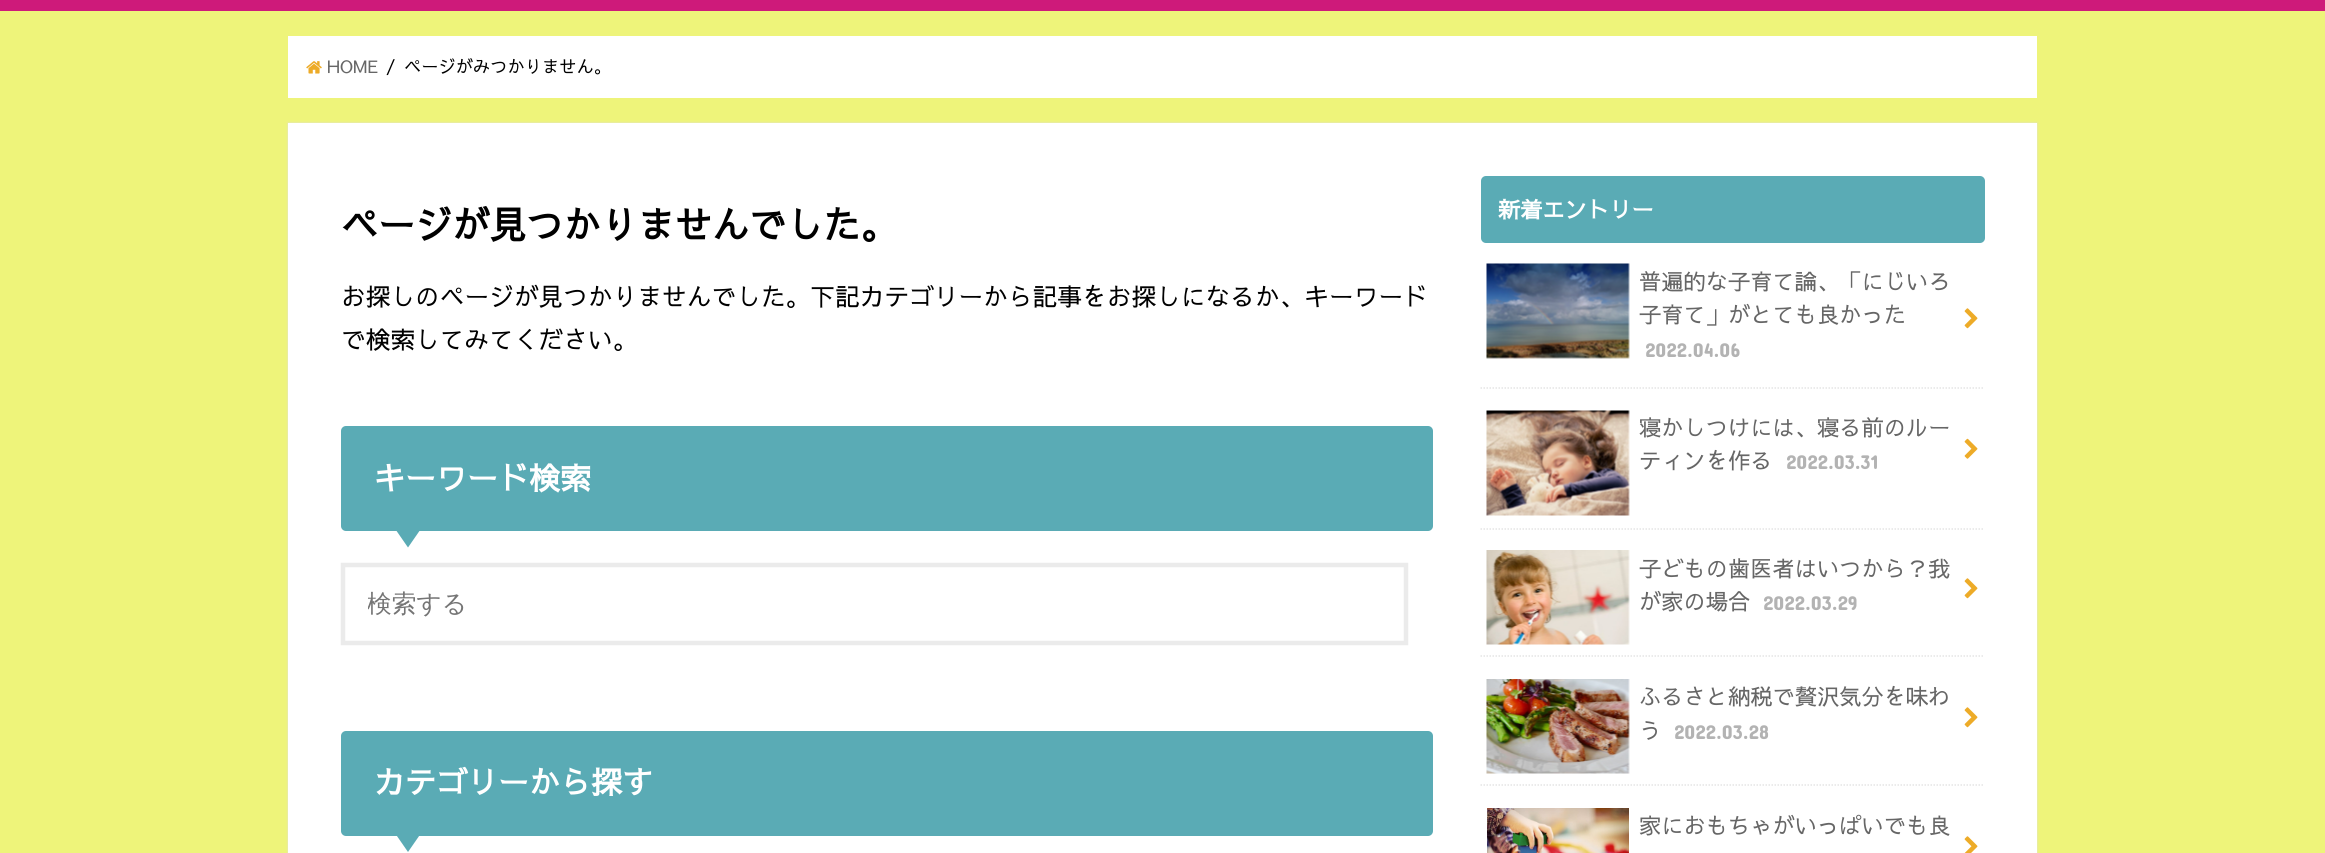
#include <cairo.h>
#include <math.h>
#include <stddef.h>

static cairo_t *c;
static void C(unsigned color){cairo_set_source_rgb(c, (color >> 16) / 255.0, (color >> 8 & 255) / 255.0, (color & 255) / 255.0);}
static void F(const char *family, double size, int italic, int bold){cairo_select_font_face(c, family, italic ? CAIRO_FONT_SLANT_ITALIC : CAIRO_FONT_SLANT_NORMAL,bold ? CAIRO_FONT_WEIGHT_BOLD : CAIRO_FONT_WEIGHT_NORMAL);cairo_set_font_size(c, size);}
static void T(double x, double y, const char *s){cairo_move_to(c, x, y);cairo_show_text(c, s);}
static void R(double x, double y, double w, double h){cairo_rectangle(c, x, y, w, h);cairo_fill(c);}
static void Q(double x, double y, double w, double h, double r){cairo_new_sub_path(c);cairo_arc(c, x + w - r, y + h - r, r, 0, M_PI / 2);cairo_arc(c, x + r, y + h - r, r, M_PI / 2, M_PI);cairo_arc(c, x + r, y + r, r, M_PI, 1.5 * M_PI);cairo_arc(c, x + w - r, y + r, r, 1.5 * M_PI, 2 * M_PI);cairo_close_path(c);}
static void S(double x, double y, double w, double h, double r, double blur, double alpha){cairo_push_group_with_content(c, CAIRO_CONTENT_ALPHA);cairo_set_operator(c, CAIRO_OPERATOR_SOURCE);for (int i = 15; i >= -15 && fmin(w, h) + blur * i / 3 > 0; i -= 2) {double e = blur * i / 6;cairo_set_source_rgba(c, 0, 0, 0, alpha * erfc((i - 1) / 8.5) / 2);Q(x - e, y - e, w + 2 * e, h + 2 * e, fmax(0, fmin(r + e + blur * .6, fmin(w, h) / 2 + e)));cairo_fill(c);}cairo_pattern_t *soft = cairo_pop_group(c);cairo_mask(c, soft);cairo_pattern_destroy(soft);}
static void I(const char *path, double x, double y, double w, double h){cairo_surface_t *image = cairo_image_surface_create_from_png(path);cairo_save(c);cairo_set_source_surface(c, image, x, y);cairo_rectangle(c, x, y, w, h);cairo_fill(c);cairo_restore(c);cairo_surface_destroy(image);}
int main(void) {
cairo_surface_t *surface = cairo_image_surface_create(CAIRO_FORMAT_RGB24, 2325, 853);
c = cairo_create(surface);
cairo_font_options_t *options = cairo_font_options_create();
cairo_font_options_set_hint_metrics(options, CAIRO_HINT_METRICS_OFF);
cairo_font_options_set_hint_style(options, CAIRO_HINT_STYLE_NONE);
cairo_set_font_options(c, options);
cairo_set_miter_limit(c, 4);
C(0xeef47a);
cairo_paint(c);
C(0xce1a7a);
R(0,0,2325,11);
C(0xffffff);
R(288,36,1749,62);
I("1.png",306,61,16,13);
F("Sawarabi Gothic",17.25,0,0);
C(0x666666);
T(327,73,"HOME");
C(0x000000);
T(386,73,"/");
T(404,73,"ページがみつかりません。");
C(0xdddddd);
S(288,123,1749,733,0,1,1);
C(0xffffff);
R(288,123,1749,730);
F("Sawarabi Gothic",37.1,0,1);
C(0x000000);
T(341,239,"ページが見つかりませんでした。");
F("Sawarabi Gothic",24.7,0,0);
T(341,306,"お探しのページが見つかりませんでした。下記カテゴリーから記事をお探しになるか、キーワード");
T(341,349,"で検索してみてください。");
C(0x5aabb5);
Q(341,426,1092,105,5);
cairo_fill(c);
F("Sawarabi Gothic",31,0,1);
C(0xffffff);
T(374,490,"キーワード検索");
C(0x5aabb5);
cairo_new_path(c);
cairo_move_to(c,394.5,528);
cairo_line_to(c,421.5,528);
cairo_line_to(c,408,547.5);
cairo_close_path(c);
cairo_fill(c);
cairo_new_path(c);
cairo_move_to(c,343,565);
cairo_line_to(c,1406,565);
cairo_line_to(c,1406,643);
cairo_line_to(c,343,643);
cairo_close_path(c);
C(0xebebeb);
cairo_set_line_width(c,4.5);
cairo_stroke(c);
cairo_save(c);
cairo_rectangle(c,368,588,1009,33);
cairo_clip(c);
F("WenQuanYi Zen Hei Medium",24.7,0,0);
C(0x757575);
T(367,612,"検索する");
cairo_restore(c);
C(0x5aabb5);
Q(341,731,1092,105,5);
cairo_fill(c);
C(0xffffff);
T(374,794,"カテゴリーから探す");
C(0x5aabb5);
cairo_new_path(c);
cairo_move_to(c,394.5,832.5);
cairo_line_to(c,421.5,832.5);
cairo_line_to(c,408,852);
cairo_close_path(c);
cairo_fill(c);
Q(1481,176,504,67,5);
cairo_fill(c);
F("Sawarabi Gothic",22.25,0,1);
C(0xffffff);
T(1498,218,"新着エントリー");
cairo_new_path(c);
cairo_move_to(c,1480.5,388);
cairo_line_to(c,1984.5,388);
C(0xe5e5e5);
cairo_set_line_width(c,1.5);
cairo_set_dash(c,(double[]){1.5,1.5},2,0);
cairo_stroke(c);
I("2.png",1486,263,144,96);
F("Sawarabi Gothic",22.25,0,0);
C(0x666666);
T(1639,290,"普遍的な子育て論、「にじいろ");
T(1639,323,"子育て」がとても良かった");
I("3.png",1964,308,14,21);
F("Concert One",20,0,0);
C(0xb3b3b3);
T(1645,357,"2022.04.06");
cairo_new_path(c);
cairo_move_to(c,1480.5,529);
cairo_line_to(c,1984.5,529);
C(0xe5e5e5);
cairo_stroke(c);
I("4.png",1486,410,144,106);
F("Sawarabi Gothic",22.25,0,0);
C(0x666666);
T(1639,436,"寝かしつけには、寝る前のルー");
T(1639,469,"ティンを作る");
F("Concert One",20,0,0);
C(0xb3b3b3);
T(1786,469,"2022.03.31");
I("5.png",1964,438,14,21);
cairo_new_path(c);
cairo_move_to(c,1480.5,656);
cairo_line_to(c,1984.5,656);
C(0xe5e5e5);
cairo_stroke(c);
I("6.png",1486,550,144,95);
F("Sawarabi Gothic",22.25,0,0);
C(0x666666);
T(1639,577,"子どもの歯医者はいつから？我");
T(1639,610,"が家の場合");
F("Concert One",20,0,0);
C(0xb3b3b3);
T(1763,610,"2022.03.29");
I("3.png",1964,578,14,21);
cairo_new_path(c);
cairo_move_to(c,1480.5,785);
cairo_line_to(c,1984.5,785);
C(0xe5e5e5);
cairo_stroke(c);
I("7.png",1486,679,144,95);
F("Sawarabi Gothic",22.25,0,0);
C(0x666666);
T(1639,705,"ふるさと納税で贅沢気分を味わ");
I("3.png",1964,707,14,21);
T(1639,739,"う");
F("Concert One",20,0,0);
C(0xb3b3b3);
T(1674,739,"2022.03.28");
I("8.png",1487,808,142,45);
F("Sawarabi Gothic",22.25,0,0);
C(0x666666);
T(1639,834,"家におもちゃがいっぱいでも良");
I("9.png",1964,836,14,17);
cairo_surface_write_to_png(surface, "o.png");
cairo_font_options_destroy(options);
cairo_destroy(c);
cairo_surface_destroy(surface);
return 0;
}
